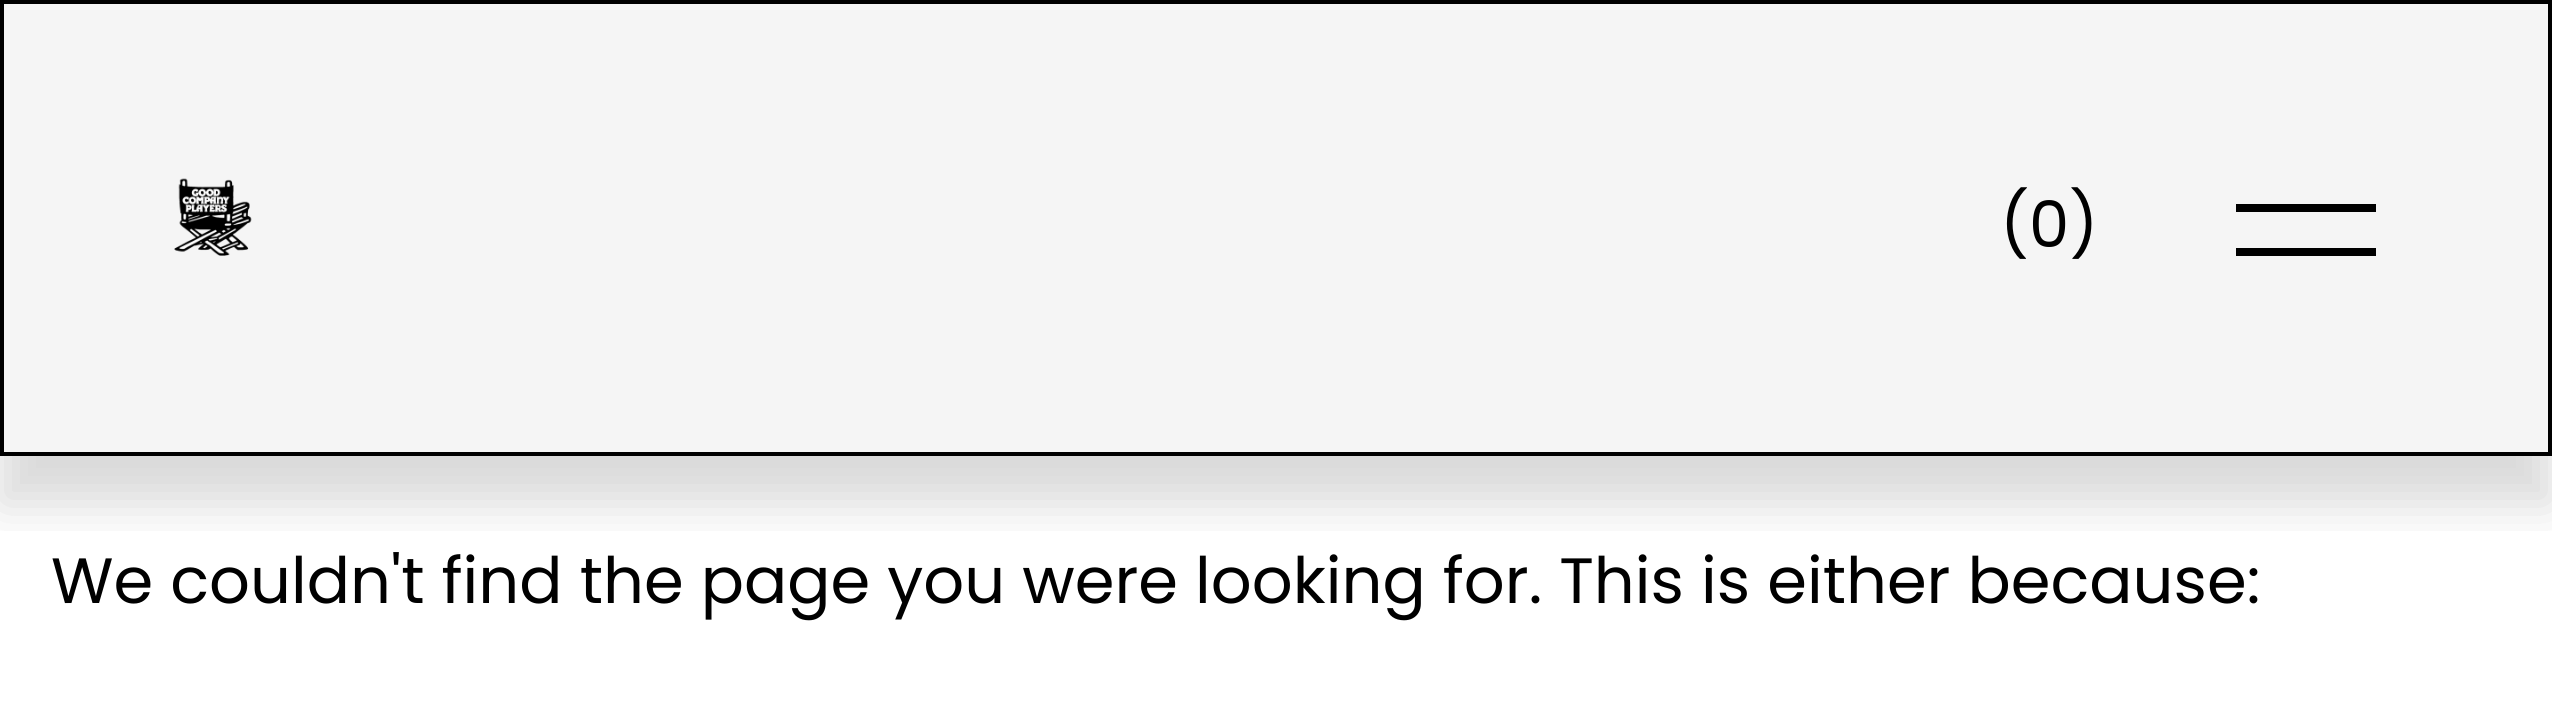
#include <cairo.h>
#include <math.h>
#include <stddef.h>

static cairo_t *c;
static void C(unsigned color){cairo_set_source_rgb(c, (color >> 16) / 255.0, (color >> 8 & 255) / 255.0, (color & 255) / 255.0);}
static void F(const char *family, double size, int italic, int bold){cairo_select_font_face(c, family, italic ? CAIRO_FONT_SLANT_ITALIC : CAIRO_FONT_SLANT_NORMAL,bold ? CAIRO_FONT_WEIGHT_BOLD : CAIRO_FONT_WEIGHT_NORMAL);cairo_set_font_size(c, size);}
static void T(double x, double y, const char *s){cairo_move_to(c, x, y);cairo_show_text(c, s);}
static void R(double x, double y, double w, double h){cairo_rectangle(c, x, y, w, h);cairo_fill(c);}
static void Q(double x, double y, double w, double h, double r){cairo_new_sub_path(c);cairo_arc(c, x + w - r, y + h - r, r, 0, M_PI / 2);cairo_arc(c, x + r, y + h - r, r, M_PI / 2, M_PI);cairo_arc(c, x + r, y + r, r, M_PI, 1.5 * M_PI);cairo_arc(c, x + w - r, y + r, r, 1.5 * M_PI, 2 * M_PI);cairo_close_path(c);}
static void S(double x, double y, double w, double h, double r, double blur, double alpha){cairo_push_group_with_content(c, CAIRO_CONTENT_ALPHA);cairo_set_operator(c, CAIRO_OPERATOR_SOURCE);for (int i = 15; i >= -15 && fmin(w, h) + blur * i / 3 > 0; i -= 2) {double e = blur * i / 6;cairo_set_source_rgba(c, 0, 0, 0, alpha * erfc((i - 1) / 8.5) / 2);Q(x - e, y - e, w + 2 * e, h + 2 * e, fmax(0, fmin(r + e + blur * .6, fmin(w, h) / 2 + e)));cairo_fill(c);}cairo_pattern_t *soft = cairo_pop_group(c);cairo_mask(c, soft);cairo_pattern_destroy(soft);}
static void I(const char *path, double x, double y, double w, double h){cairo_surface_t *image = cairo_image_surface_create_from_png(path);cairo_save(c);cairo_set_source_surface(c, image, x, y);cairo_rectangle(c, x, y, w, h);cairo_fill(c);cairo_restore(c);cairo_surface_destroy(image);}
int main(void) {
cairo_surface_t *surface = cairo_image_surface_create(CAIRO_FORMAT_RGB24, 2552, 714);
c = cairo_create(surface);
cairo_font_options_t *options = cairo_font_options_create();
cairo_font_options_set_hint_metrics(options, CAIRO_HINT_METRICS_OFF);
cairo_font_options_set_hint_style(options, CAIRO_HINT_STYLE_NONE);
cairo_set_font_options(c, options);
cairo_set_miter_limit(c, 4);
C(0xffffff);
cairo_paint(c);
C(0xf5f5f5);
R(4,4,2544,448);
cairo_save(c);
cairo_rectangle(c,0,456,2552,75);
cairo_clip(c);
C(0x000000);
S(0,48,2552,456,0,24,.15);
cairo_restore(c);
cairo_rectangle(c,2,2,2548,452);
C(0x000000);
cairo_set_line_width(c,4);
cairo_stroke(c);
I("1.png",174,178,78,78);
F("Poppins",64,0,0);
T(2000,247,"(0)");
R(2236,204,140,8);
R(2236,248,140,8);
T(51,603,"We couldn't find the page you were looking for. This is either because:");
cairo_surface_write_to_png(surface, "o.png");
cairo_font_options_destroy(options);
cairo_destroy(c);
cairo_surface_destroy(surface);
return 0;
}
